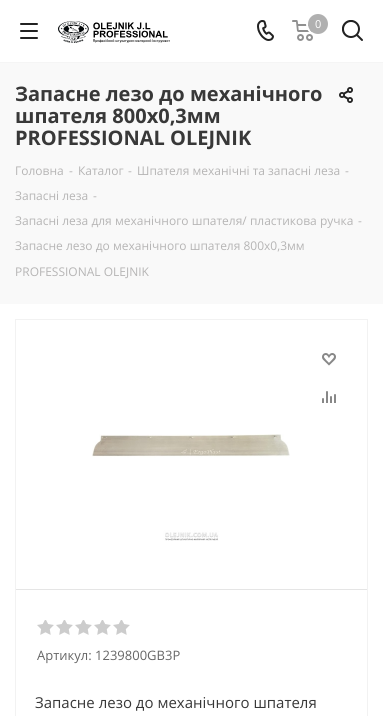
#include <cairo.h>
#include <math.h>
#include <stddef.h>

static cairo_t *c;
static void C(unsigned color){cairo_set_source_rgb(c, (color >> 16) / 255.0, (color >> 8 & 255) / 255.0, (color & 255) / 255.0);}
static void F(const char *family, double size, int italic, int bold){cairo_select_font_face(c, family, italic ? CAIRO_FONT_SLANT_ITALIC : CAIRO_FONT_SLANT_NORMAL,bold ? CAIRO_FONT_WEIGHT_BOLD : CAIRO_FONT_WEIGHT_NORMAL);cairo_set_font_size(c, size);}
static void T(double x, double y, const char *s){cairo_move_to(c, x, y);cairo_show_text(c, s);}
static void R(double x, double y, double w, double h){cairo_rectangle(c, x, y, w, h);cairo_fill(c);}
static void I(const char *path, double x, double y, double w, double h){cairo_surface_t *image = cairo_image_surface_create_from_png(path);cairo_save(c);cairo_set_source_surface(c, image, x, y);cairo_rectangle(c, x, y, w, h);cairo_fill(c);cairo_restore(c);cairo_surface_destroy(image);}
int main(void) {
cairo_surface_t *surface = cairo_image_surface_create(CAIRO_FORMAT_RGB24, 383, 716);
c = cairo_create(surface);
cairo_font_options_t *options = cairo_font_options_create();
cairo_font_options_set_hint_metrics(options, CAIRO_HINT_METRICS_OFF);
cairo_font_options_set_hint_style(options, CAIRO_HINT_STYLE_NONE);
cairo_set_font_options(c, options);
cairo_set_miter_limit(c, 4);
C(0xffffff);
cairo_paint(c);
C(0xf5f5f5);
R(0,62,383,1);
I("1.png",20,23,18,16);
I("2.png",58,21,112,22);
I("3.png",257,20,17,21);
I("4.png",292,20,21,21);
cairo_arc(c,318,24,11,0,2 * M_PI);
C(0xffffff);
cairo_stroke(c);
C(0xb0b0b0);
cairo_arc(c,318,24,10,0,2 * M_PI);
cairo_fill(c);
F("Open Sans",11,0,0);
C(0xffffff);
T(315,28,"0");
I("5.png",342,20,21,21);
C(0xf9f9f9);
R(0,63,383,241);
F("Open Sans",20,0,1);
C(0x383838);
T(15,101,"Запасне лезо до механічного");
T(15,123,"шпателя 800х0,3мм");
T(15,145,"PROFESSIONAL OLEJNIK");
I("6.png",339,87,14,16);
F("Open Sans",12,0,0);
C(0xb6b5b5);
T(15,175,"Головна");
T(69,175,"-");
T(78,175,"Каталог");
T(128,175,"-");
T(137,175,"Шпателя механічні та запасні леза");
T(345,175,"-");
T(15,200,"Запасні леза");
T(93,200,"-");
T(15,225,"Запасні леза для механічного шпателя/ пластикова ручка");
T(358,225,"-");
T(15,250,"Запасне лезо до механічного шпателя 800х0,3мм");
T(15,276,"PROFESSIONAL OLEJNIK");
cairo_rectangle(c,15.5,319.5,352,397);
C(0xf2f2f2);
cairo_set_line_width(c,1);
cairo_stroke(c);
I("7.png",322,353,14,13);
I("8.png",322,391,14,12);
I("9.png",92,434,198,107);
C(0xe5e5e5);
R(16,589,351,1);
I("10.png",37,620,17,15);
I("10.png",56,620,17,15);
I("10.png",75,620,17,15);
I("10.png",94,620,17,15);
I("10.png",113,620,17,15);
F("Open Sans",13,0,0);
C(0x666666);
T(37,660,"Артикул: 1239800GB3P");
F("Open Sans",15,0,0);
C(0x383838);
T(35,708,"Запасне лезо до механічного шпателя");
cairo_surface_write_to_png(surface, "o.png");
cairo_font_options_destroy(options);
cairo_destroy(c);
cairo_surface_destroy(surface);
return 0;
}
